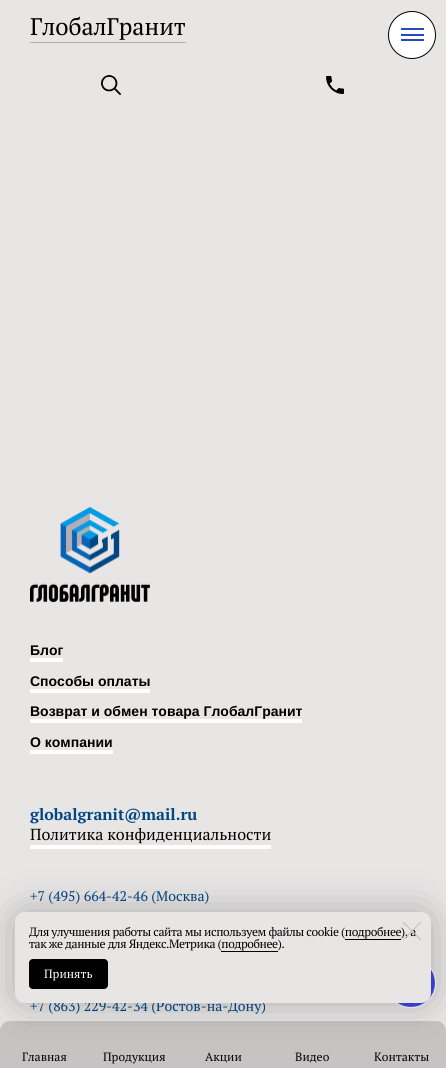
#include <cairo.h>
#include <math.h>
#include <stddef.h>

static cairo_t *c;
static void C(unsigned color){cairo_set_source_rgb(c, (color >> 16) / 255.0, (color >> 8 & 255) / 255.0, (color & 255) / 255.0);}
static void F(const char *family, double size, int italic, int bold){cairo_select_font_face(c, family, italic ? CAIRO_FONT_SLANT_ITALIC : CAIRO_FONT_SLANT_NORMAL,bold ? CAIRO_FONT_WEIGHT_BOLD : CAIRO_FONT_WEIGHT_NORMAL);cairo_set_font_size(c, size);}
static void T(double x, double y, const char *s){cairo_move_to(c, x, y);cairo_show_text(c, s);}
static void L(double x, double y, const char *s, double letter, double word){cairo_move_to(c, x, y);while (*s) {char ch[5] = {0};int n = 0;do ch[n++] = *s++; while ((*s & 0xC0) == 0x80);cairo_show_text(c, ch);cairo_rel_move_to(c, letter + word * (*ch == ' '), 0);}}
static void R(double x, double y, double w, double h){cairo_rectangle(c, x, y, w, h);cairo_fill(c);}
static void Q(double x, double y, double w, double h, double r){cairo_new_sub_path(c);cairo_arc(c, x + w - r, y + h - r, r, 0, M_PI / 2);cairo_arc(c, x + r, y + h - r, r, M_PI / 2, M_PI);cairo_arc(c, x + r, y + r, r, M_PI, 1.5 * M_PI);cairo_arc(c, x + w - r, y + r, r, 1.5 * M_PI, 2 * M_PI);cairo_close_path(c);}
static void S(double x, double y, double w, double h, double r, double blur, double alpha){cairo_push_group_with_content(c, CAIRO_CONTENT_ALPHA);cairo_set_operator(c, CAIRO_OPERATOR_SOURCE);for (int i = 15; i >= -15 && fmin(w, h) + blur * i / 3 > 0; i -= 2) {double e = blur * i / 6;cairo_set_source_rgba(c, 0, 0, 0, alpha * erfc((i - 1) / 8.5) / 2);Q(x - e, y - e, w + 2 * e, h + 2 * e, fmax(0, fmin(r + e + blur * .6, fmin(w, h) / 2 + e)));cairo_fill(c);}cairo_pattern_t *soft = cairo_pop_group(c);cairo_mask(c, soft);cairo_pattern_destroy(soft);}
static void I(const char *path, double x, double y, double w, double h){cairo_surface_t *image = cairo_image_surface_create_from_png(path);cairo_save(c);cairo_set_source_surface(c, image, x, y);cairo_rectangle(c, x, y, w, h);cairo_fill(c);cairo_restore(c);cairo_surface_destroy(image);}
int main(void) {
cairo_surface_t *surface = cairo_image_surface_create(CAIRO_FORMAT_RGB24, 446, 1068);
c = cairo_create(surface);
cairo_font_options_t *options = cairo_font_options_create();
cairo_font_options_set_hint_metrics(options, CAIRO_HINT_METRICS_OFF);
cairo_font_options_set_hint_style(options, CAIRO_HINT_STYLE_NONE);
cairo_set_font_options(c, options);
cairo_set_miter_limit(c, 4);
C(0xe8e5e5);
cairo_paint(c);
F("PT Serif",24,0,0);
C(0x000000);
T(30,35,"ГлобалГранит");
C(0xb0b0b0);
R(30,42,156,1);
C(0xffffff);
cairo_new_path(c);
cairo_arc(c,412,35,23.5,0,2 * M_PI);
cairo_fill_preserve(c);
C(0x000000);
cairo_set_line_width(c,1);
cairo_stroke(c);
C(0x224bbd);
R(401,28,23,2);
R(401,34,23,2);
R(401,39,23,2);
I("1.png",101,75,20,20);
I("2.png",326,76,18,18);
cairo_arc(c,411,983,24.5,0,2 * M_PI);
C(0xffffff);
cairo_stroke(c);
I("3.png",397,969,38,38);
C(0xc8c3c3);
cairo_new_path(c);
cairo_move_to(c,10,1021);
cairo_line_to(c,436,1021);
cairo_curve_to(c,441.5,1021,446,1025.5,446,1031);
cairo_line_to(c,446,1068);
cairo_line_to(c,0,1068);
cairo_line_to(c,0,1031);
cairo_curve_to(c,0,1025.5,4.5,1021,10,1021);
cairo_close_path(c);
cairo_fill(c);
F("PT Serif",12,0,0);
C(0x000000);
T(22,1061,"Главная");
T(103,1061,"Продукция");
T(205,1061,"Акции");
T(295,1061,"Видео");
T(374,1061,"Контакты");
I("4.png",30,507,120,95);
F("Liberation Sans",14,0,1);
T(30,655,"Блог");
C(0xffffff);
R(30,658,33,4);
C(0x000000);
T(30,686,"Способы оплаты");
C(0xffffff);
R(30,689,120,4);
C(0x000000);
T(30,716,"Возврат и обмен товара ГлобалГранит");
C(0xffffff);
R(30,719,272,4);
C(0x000000);
T(30,747,"О компании");
C(0xffffff);
R(30,750,83,4);
F("PT Serif",16,0,1);
C(0x004683);
T(30,820,"globalgranit@mail.ru");
F("PT Serif",16,0,0);
C(0x000000);
T(30,840,"Политика конфиденциальности");
C(0xffffff);
R(30,845,241,4);
F("PT Serif",14,0,0);
C(0x004683);
T(30,901,"+7 (495) 664-42-46 (Москва)");
T(30,1011,"+7 (863) 229-42-34 (Ростов-на-Дону)");
C(0x000000);
S(15,912,416,91,10,20,.25);
C(0xe8e5e5);
Q(15,912,416,91,10);
cairo_fill(c);
F("PT Serif",12,0,0);
C(0x000000);
L(29,936,"Для улучшения работы сайта мы используем файлы cookie (подробнее), а",-.42,0);
I("5.png",403,922,18,18);
L(29,948,"так же данные для Яндекс.Метрика (подробнее).",-.42,0);
R(345,939,56,1);
R(221,951,57,1);
Q(29,959,79,30,4);
cairo_fill(c);
C(0xffffff);
T(44,978,"Принять");
cairo_surface_write_to_png(surface, "o.png");
cairo_font_options_destroy(options);
cairo_destroy(c);
cairo_surface_destroy(surface);
return 0;
}
